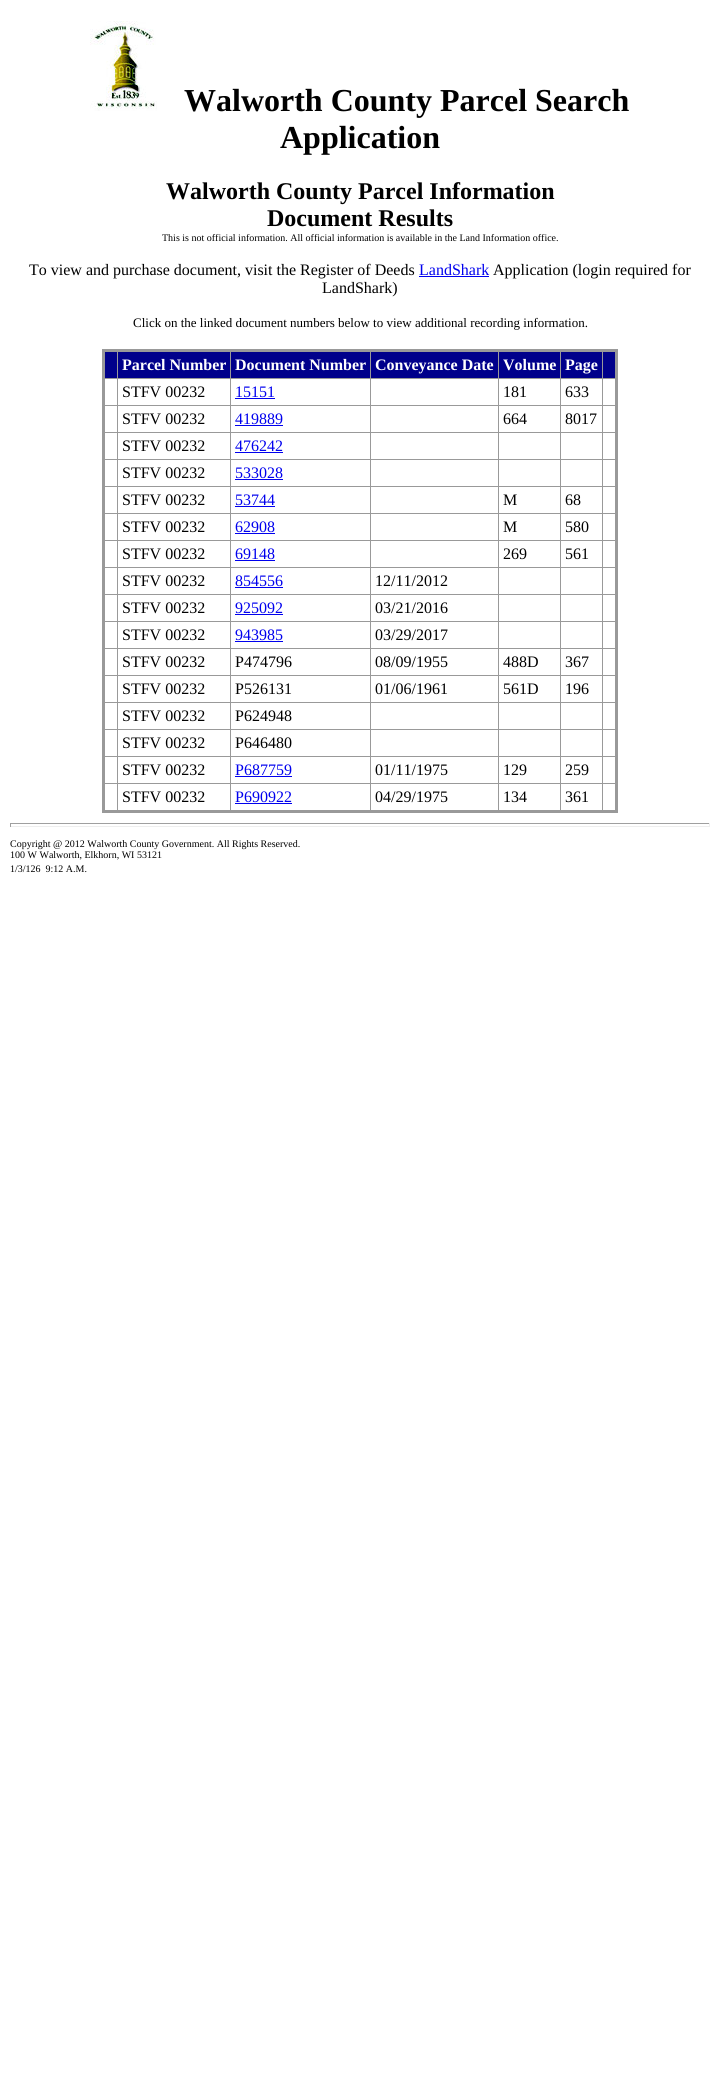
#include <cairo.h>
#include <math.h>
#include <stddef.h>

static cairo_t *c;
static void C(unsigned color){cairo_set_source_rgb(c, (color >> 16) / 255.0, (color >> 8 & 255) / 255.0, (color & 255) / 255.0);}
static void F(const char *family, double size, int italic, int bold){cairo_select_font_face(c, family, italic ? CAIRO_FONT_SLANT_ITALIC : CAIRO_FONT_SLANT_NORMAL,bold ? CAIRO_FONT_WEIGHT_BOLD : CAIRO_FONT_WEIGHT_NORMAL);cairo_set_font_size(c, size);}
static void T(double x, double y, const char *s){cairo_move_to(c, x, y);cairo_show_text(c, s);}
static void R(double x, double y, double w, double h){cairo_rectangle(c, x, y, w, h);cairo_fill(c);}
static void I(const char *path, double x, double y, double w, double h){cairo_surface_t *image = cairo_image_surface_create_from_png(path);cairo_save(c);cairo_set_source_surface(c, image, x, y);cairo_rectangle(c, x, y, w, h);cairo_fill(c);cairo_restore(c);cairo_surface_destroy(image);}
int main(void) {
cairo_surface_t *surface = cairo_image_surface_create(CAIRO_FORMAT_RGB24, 720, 2088);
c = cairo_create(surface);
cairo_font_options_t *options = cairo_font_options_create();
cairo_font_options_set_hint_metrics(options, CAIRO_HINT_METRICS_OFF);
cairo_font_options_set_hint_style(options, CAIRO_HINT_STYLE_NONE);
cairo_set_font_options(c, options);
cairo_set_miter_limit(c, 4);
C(0xffffff);
cairo_paint(c);
I("1.png",90,21,67,90);
F("Liberation Serif",32,0,1);
C(0x000000);
T(184,111,"Walworth County Parcel Search");
T(280,148,"Application");
F("Liberation Serif",24,0,1);
T(166,199,"Walworth County Parcel Information");
T(267,226,"Document Results");
F("Liberation Serif",10,0,0);
T(162,241,"This is not official information. All official information is available in the Land Information office.");
F("Liberation Serif",16,0,0);
T(29,275,"To view and purchase document, visit the Register of Deeds");
C(0x0000ee);
T(419,275,"LandShark");
R(419,276,70,1);
C(0x000000);
T(493,275,"Application (login required for");
T(322,293,"LandShark)");
F("Liberation Serif",13,0,0);
T(133,327,"Click on the linked document numbers below to view additional recording information.");
C(0x999999);
R(602,378,15,1);
R(602,405,15,1);
R(602,432,15,1);
R(602,459,15,1);
R(602,486,15,1);
R(602,513,15,1);
R(602,540,15,1);
R(602,567,15,1);
R(602,594,15,1);
R(602,621,15,1);
R(602,648,15,1);
R(602,675,15,1);
R(602,702,15,1);
R(602,729,15,1);
R(602,756,15,1);
R(602,783,15,1);
R(602,783,1,29);
R(560,783,43,1);
R(602,756,1,28);
R(560,756,43,1);
R(602,729,1,28);
R(560,729,43,1);
R(602,702,1,28);
R(560,702,43,1);
R(602,675,1,28);
R(560,675,43,1);
R(602,648,1,28);
R(560,648,43,1);
R(602,621,1,28);
R(560,621,43,1);
R(602,594,1,28);
R(560,594,43,1);
R(602,567,1,28);
R(560,567,43,1);
R(602,540,1,28);
R(560,540,43,1);
R(602,513,1,28);
R(560,513,43,1);
R(602,486,1,28);
R(560,486,43,1);
R(602,459,1,28);
R(560,459,43,1);
R(602,432,1,28);
R(560,432,43,1);
R(602,405,1,28);
R(560,405,43,1);
R(602,378,1,28);
R(560,378,43,1);
R(560,783,1,29);
R(498,783,63,1);
R(560,756,1,28);
R(498,756,63,1);
R(560,729,1,28);
R(498,729,63,1);
R(560,702,1,28);
R(498,702,63,1);
R(560,675,1,28);
R(498,675,63,1);
R(560,648,1,28);
R(498,648,63,1);
R(560,621,1,28);
R(498,621,63,1);
R(560,594,1,28);
R(498,594,63,1);
R(560,567,1,28);
R(498,567,63,1);
R(560,540,1,28);
R(498,540,63,1);
R(560,513,1,28);
R(498,513,63,1);
R(560,486,1,28);
R(498,486,63,1);
R(560,459,1,28);
R(498,459,63,1);
R(560,432,1,28);
R(498,432,63,1);
R(560,405,1,28);
R(498,405,63,1);
R(560,378,1,28);
R(498,378,63,1);
R(498,783,1,29);
R(370,783,129,1);
R(498,756,1,28);
R(370,756,129,1);
R(498,729,1,28);
R(370,729,129,1);
R(498,702,1,28);
R(370,702,129,1);
R(498,675,1,28);
R(370,675,129,1);
R(498,648,1,28);
R(370,648,129,1);
R(498,621,1,28);
R(370,621,129,1);
R(498,594,1,28);
R(370,594,129,1);
R(498,567,1,28);
R(370,567,129,1);
R(498,540,1,28);
R(370,540,129,1);
R(498,513,1,28);
R(370,513,129,1);
R(498,486,1,28);
R(370,486,129,1);
R(498,459,1,28);
R(370,459,129,1);
R(498,432,1,28);
R(370,432,129,1);
R(498,405,1,28);
R(370,405,129,1);
R(498,378,1,28);
R(370,378,129,1);
R(370,783,1,29);
R(230,783,141,1);
R(370,756,1,28);
R(230,756,141,1);
R(370,729,1,28);
R(230,729,141,1);
R(370,702,1,28);
R(230,702,141,1);
R(370,675,1,28);
R(230,675,141,1);
R(370,648,1,28);
R(230,648,141,1);
R(370,621,1,28);
R(230,621,141,1);
R(370,594,1,28);
R(230,594,141,1);
R(370,567,1,28);
R(230,567,141,1);
R(370,540,1,28);
R(230,540,141,1);
R(370,513,1,28);
R(230,513,141,1);
R(370,486,1,28);
R(230,486,141,1);
R(370,459,1,28);
R(230,459,141,1);
R(370,432,1,28);
R(230,432,141,1);
R(370,405,1,28);
R(230,405,141,1);
R(370,378,1,28);
R(230,378,141,1);
R(230,783,1,29);
R(117,783,114,1);
R(230,756,1,28);
R(117,756,114,1);
R(230,729,1,28);
R(117,729,114,1);
R(230,702,1,28);
R(117,702,114,1);
R(230,675,1,28);
R(117,675,114,1);
R(230,648,1,28);
R(117,648,114,1);
R(230,621,1,28);
R(117,621,114,1);
R(230,594,1,28);
R(117,594,114,1);
R(230,567,1,28);
R(117,567,114,1);
R(230,540,1,28);
R(117,540,114,1);
R(230,513,1,28);
R(117,513,114,1);
R(230,486,1,28);
R(117,486,114,1);
R(230,459,1,28);
R(117,459,114,1);
R(230,432,1,28);
R(117,432,114,1);
R(230,405,1,28);
R(117,405,114,1);
R(230,378,1,28);
R(117,378,114,1);
R(117,783,1,29);
R(103,783,15,1);
R(117,756,1,28);
R(103,756,15,1);
R(117,729,1,28);
R(103,729,15,1);
R(117,702,1,28);
R(103,702,15,1);
R(117,675,1,28);
R(103,675,15,1);
R(117,648,1,28);
R(103,648,15,1);
R(117,621,1,28);
R(103,621,15,1);
R(117,594,1,28);
R(103,594,15,1);
R(117,567,1,28);
R(103,567,15,1);
R(117,540,1,28);
R(103,540,15,1);
R(117,513,1,28);
R(103,513,15,1);
R(117,486,1,28);
R(103,486,15,1);
R(117,459,1,28);
R(103,459,15,1);
R(117,432,1,28);
R(103,432,15,1);
R(117,405,1,28);
R(103,405,15,1);
R(117,378,1,28);
R(103,378,15,1);
R(117,350,1,29);
R(230,350,1,29);
R(370,350,1,29);
R(498,350,1,29);
R(560,350,1,29);
R(602,350,1,29);
R(102,349,516,3);
R(615,349,3,464);
R(102,810,516,3);
R(102,349,3,464);
C(0x00008b);
R(105,352,12,26);
R(118,352,112,26);
F("Liberation Serif",16,0,1);
C(0xffffff);
T(122,370,"Parcel Number");
C(0x00008b);
R(231,352,139,26);
C(0xffffff);
T(235,370,"Document Number");
C(0x00008b);
R(371,352,127,26);
C(0xffffff);
T(375,370,"Conveyance Date");
C(0x00008b);
R(499,352,61,26);
C(0xffffff);
T(503,370,"Volume");
C(0x00008b);
R(561,352,41,26);
C(0xffffff);
T(565,370,"Page");
C(0x00008b);
R(603,352,12,26);
F("Liberation Serif",16,0,0);
C(0x000000);
T(122,397,"STFV 00232");
C(0x0000ee);
T(235,397,"15151");
R(235,398,40,1);
C(0x000000);
T(503,397,"181");
T(565,397,"633");
T(122,424,"STFV 00232");
C(0x0000ee);
T(235,424,"419889");
R(235,425,48,1);
C(0x000000);
T(503,424,"664");
T(565,424,"8017");
T(122,451,"STFV 00232");
C(0x0000ee);
T(235,451,"476242");
R(235,452,48,1);
C(0x000000);
T(122,478,"STFV 00232");
C(0x0000ee);
T(235,478,"533028");
R(235,479,48,1);
C(0x000000);
T(122,505,"STFV 00232");
C(0x0000ee);
T(235,505,"53744");
R(235,506,40,1);
C(0x000000);
T(503,505,"M");
T(565,505,"68");
T(122,532,"STFV 00232");
C(0x0000ee);
T(235,532,"62908");
R(235,533,40,1);
C(0x000000);
T(503,532,"M");
T(565,532,"580");
T(122,559,"STFV 00232");
C(0x0000ee);
T(235,559,"69148");
R(235,560,40,1);
C(0x000000);
T(503,559,"269");
T(565,559,"561");
T(122,586,"STFV 00232");
C(0x0000ee);
T(235,586,"854556");
R(235,587,48,1);
C(0x000000);
T(375,586,"12/11/2012");
T(122,613,"STFV 00232");
C(0x0000ee);
T(235,613,"925092");
R(235,614,48,1);
C(0x000000);
T(375,613,"03/21/2016");
T(122,640,"STFV 00232");
C(0x0000ee);
T(235,640,"943985");
R(235,641,48,1);
C(0x000000);
T(375,640,"03/29/2017");
T(122,667,"STFV 00232");
T(235,667,"P474796");
T(375,667,"08/09/1955");
T(503,667,"488D");
T(565,667,"367");
T(122,694,"STFV 00232");
T(235,694,"P526131");
T(375,694,"01/06/1961");
T(503,694,"561D");
T(565,694,"196");
T(122,721,"STFV 00232");
T(235,721,"P624948");
T(122,748,"STFV 00232");
T(235,748,"P646480");
T(122,775,"STFV 00232");
C(0x0000ee);
T(235,775,"P687759");
R(235,776,57,1);
C(0x000000);
T(375,775,"01/11/1975");
T(503,775,"129");
T(565,775,"259");
T(122,802,"STFV 00232");
C(0x0000ee);
T(235,802,"P690922");
R(235,803,57,1);
C(0x000000);
T(375,802,"04/29/1975");
T(503,802,"134");
T(565,802,"361");
C(0x9f9f9f);
R(10,823,700,1);
C(0xeeeeee);
R(709,823,1,4);
R(10,826,700,1);
C(0x9f9f9f);
R(10,823,1,4);
F("Liberation Serif",10,0,0);
C(0x000000);
T(10,847,"Copyright @ 2012 Walworth County Government. All Rights Reserved.");
T(10,858,"100 W Walworth, Elkhorn, WI 53121");
T(10,872,"1/3/126  9:12 A.M.");
cairo_surface_write_to_png(surface, "o.png");
cairo_font_options_destroy(options);
cairo_destroy(c);
cairo_surface_destroy(surface);
return 0;
}
